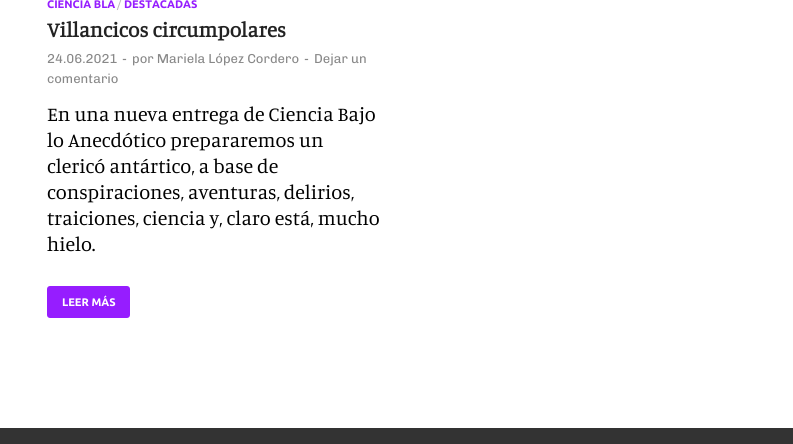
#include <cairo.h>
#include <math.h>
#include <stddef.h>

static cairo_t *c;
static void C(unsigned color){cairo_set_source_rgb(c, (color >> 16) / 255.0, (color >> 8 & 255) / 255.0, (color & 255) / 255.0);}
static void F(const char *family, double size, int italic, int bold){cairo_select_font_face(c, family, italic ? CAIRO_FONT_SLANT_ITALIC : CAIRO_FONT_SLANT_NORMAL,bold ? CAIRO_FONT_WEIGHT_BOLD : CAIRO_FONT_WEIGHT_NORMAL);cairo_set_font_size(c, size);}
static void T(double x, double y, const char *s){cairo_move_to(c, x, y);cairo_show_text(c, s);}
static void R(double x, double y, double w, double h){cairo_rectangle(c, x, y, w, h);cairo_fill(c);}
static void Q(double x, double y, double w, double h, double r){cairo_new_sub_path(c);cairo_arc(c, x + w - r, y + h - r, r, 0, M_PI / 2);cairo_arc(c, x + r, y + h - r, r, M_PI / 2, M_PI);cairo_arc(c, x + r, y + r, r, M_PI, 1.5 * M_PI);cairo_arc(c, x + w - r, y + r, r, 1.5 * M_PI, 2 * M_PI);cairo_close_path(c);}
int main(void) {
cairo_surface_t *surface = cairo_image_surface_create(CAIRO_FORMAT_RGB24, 793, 444);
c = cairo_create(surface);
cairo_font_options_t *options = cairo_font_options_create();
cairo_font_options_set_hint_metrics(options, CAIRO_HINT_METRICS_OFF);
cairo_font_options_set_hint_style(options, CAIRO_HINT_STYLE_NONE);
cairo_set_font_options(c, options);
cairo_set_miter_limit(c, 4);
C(0xffffff);
cairo_paint(c);
F("Ubuntu",11,0,1);
C(0x961dff);
T(47,8,"CIENCIA BLA");
F("Ubuntu",11,0,0);
C(0xbbbbbb);
T(117,8,"/");
F("Ubuntu",11,0,1);
C(0x961dff);
T(124,8,"DESTACADAS");
F("Manuale",21,0,1);
C(0x222222);
T(47,37,"Villancicos circumpolares");
F("Chivo",13,0,0);
C(0x888888);
T(47,63,"24.06.2021");
T(122,63,"-");
T(132,63,"por Mariela López Cordero");
T(304,63,"-");
T(314,63,"Dejar un");
T(47,83,"comentario");
F("Manuale",20,0,0);
C(0x000000);
T(47,121,"En una nueva entrega de Ciencia Bajo");
T(47,147,"lo Anecdótico prepararemos un");
T(47,173,"clericó antártico, a base de");
T(47,199,"conspiraciones, aventuras, delirios,");
T(47,225,"traiciones, ciencia y, claro está, mucho");
T(47,251,"hielo.");
C(0x961dff);
Q(47,286,83,32,3);
cairo_fill(c);
F("Ubuntu",11,0,1);
C(0xffffff);
T(62,306,"LEER MÁS");
C(0x333333);
R(0,428,793,16);
cairo_surface_write_to_png(surface, "o.png");
cairo_font_options_destroy(options);
cairo_destroy(c);
cairo_surface_destroy(surface);
return 0;
}
